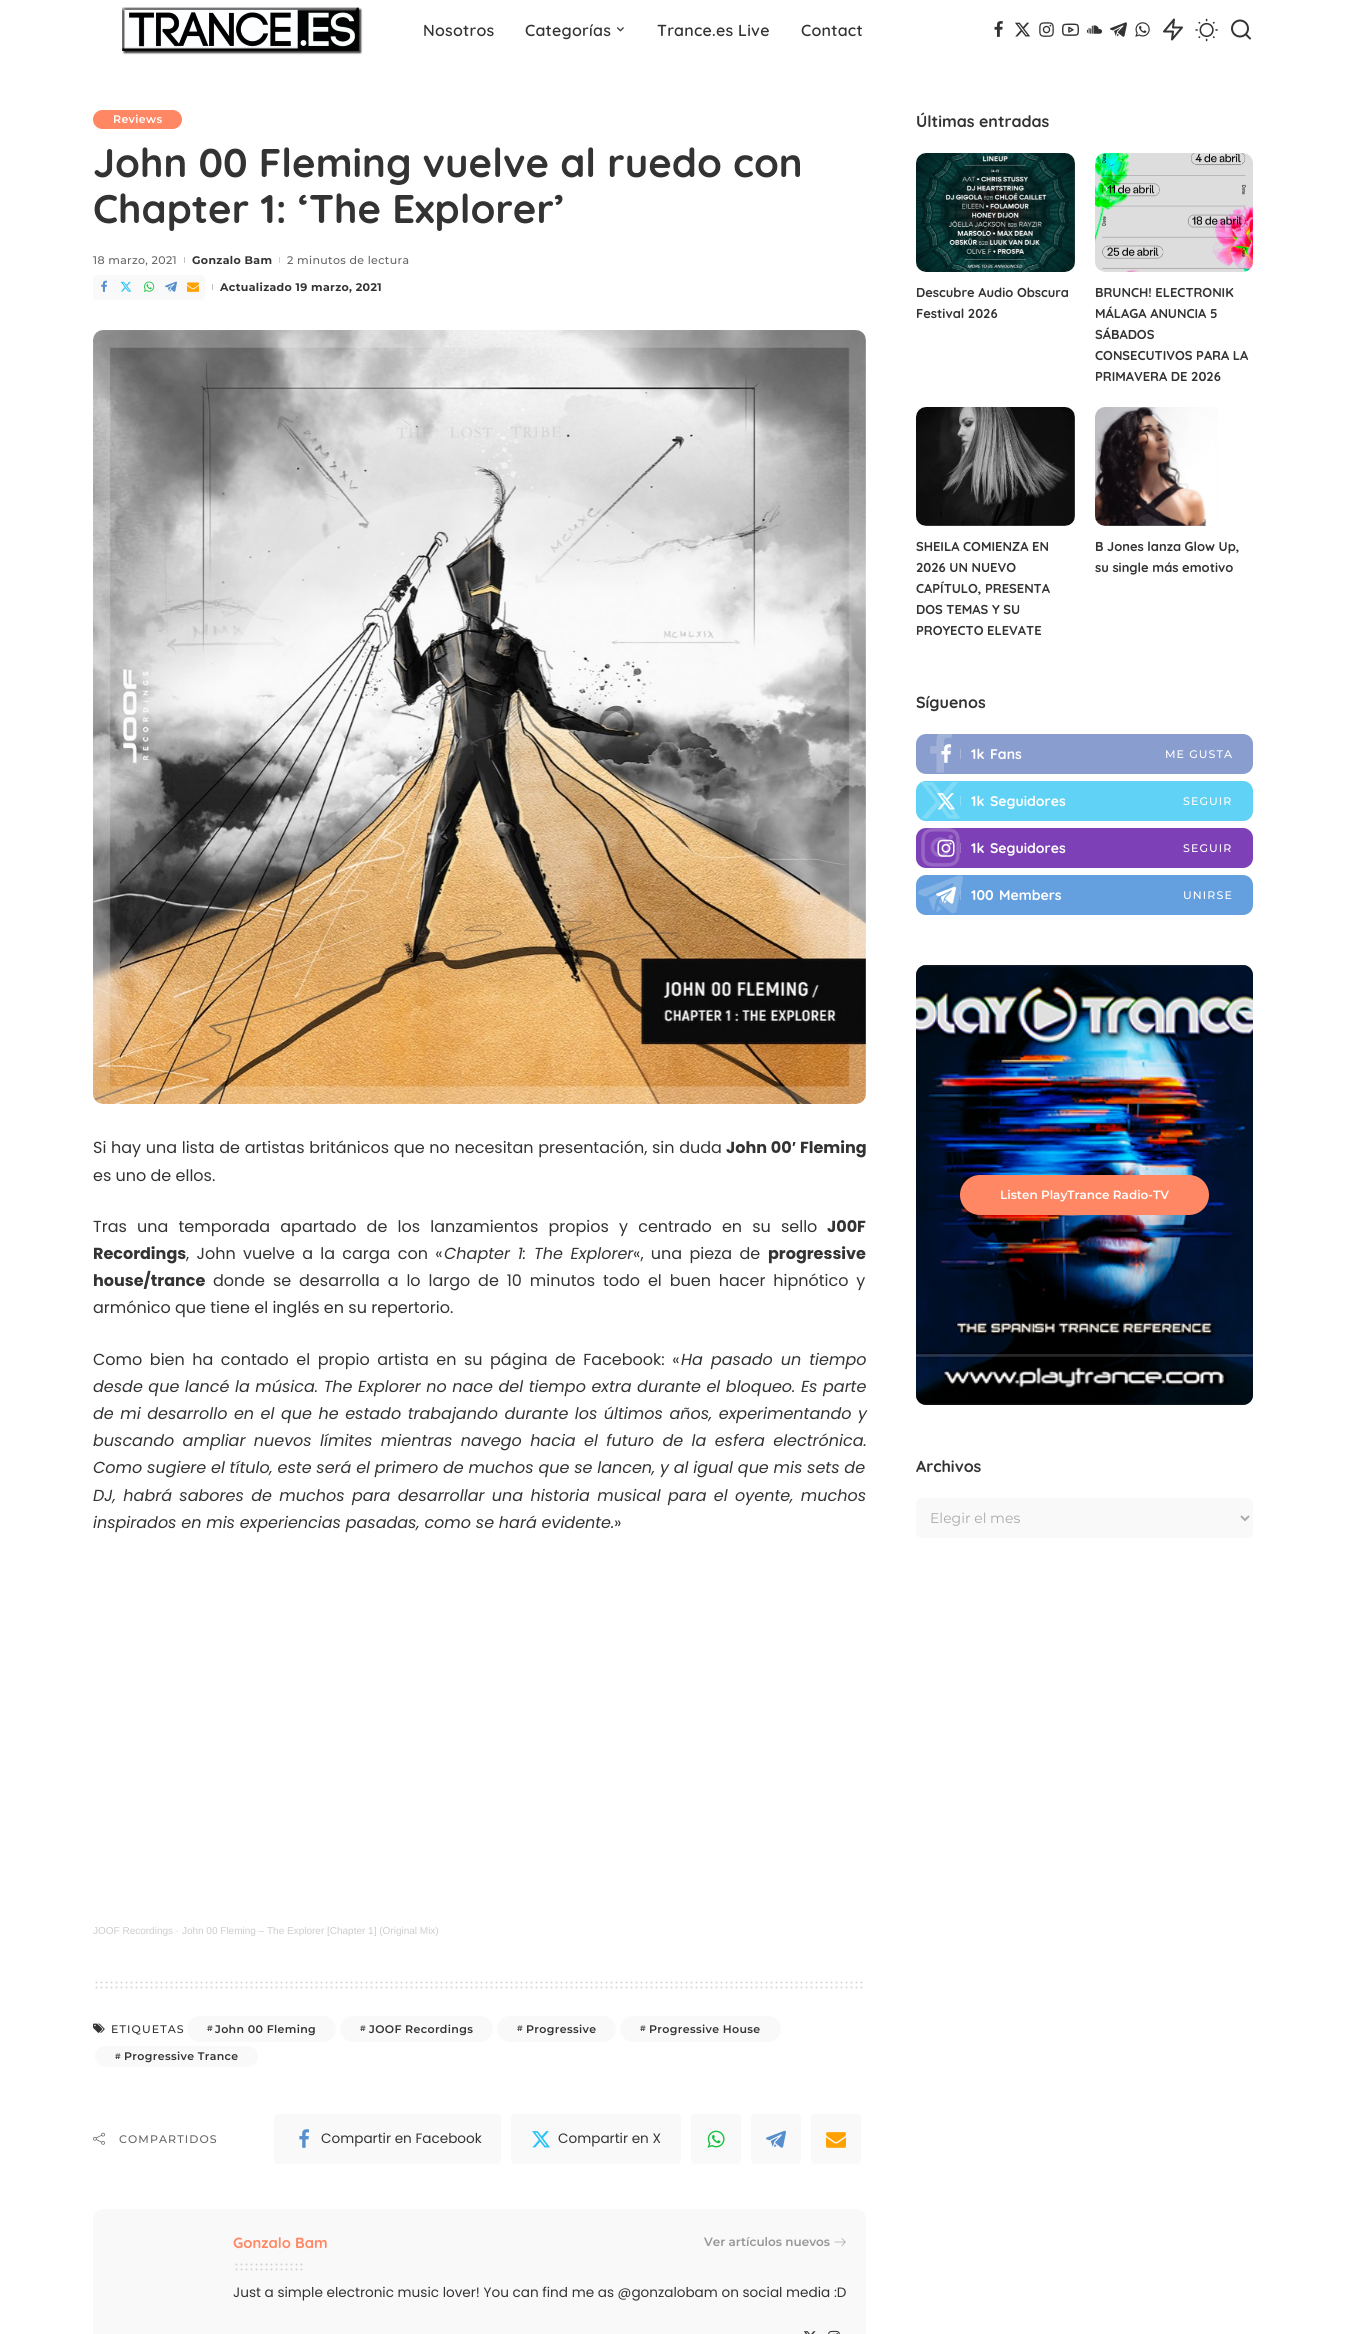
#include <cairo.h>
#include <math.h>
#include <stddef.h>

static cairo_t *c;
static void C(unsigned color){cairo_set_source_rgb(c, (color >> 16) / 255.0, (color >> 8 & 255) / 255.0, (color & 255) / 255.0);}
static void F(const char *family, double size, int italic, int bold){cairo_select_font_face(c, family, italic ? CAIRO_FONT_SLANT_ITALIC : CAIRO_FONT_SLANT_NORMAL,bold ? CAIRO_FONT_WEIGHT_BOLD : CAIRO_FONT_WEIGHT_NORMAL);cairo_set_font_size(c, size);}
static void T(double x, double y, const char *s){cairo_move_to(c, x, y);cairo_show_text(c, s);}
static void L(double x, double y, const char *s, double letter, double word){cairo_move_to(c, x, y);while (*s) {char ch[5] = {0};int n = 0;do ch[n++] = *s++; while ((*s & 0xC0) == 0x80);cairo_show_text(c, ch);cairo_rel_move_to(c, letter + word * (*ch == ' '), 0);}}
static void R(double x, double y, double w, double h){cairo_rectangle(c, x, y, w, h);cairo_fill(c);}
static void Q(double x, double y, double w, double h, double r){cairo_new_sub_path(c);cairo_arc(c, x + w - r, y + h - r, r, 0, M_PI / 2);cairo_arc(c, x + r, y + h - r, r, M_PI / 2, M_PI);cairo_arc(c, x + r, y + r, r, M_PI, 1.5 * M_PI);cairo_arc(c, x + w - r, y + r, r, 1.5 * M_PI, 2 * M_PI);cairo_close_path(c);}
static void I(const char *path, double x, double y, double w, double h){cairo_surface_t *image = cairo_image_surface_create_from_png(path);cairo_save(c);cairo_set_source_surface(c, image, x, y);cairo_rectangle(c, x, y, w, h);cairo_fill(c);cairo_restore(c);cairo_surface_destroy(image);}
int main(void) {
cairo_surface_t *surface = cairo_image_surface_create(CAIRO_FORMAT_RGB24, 1346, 2334);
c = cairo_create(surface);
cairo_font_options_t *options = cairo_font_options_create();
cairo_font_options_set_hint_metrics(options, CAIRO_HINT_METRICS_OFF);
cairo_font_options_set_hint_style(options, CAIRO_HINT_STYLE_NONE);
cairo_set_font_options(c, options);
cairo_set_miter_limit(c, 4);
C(0xffffff);
cairo_paint(c);
I("1.png",122,7,241,48);
F("Quicksand SemiBold",16,0,0);
C(0x333333);
L(423,36,"Nosotros",.25,0);
L(525,36,"Categorías",.25,0);
I("2.png",616,27,8,5);
L(657,36,"Trance.es Live",.25,0);
L(801,36,"Contact",.25,0);
I("3.png",994,21,9,16);
I("4.png",1015,22,15,15);
I("5.png",1039,22,15,15);
I("6.png",1062,23,17,13);
I("7.png",1086,25,17,9);
I("8.png",1110,22,17,15);
I("9.png",1135,22,15,15);
I("10.png",1163,18,20,23);
I("11.png",1195,18,23,24);
I("12.png",1231,19,20,21);
C(0xff8763);
Q(93,110,89,19,9.5);
cairo_fill(c);
F("Montserrat SemiBold",11,0,0);
C(0xffffff);
L(113,123,"Reviews",.35,0);
F("Quicksand",40,0,1);
C(0x333333);
T(93,177,"John 00 Fleming vuelve al ruedo con");
T(93,223,"Chapter 1: ‘The Explorer’");
F("Montserrat Medium",11,0,0);
C(0x666666);
L(93,264,"18 marzo, 2021",.35,0);
C(0xc2c2c2);
R(184,257,1,6);
F("Montserrat",11,0,1);
C(0x333333);
L(192,264,"Gonzalo Bam",.35,0);
C(0xd1d1d1);
R(279,257,1,6);
F("Montserrat Medium",11,0,0);
C(0x666666);
L(287,264,"2 minutos de lectura",.35,0);
C(0xf9f9f9);
Q(93,275,112,25,4);
cairo_fill(c);
I("13.png",101,280,6,12);
I("14.png",120,281,12,11);
I("15.png",143,281,12,11);
I("16.png",165,281,12,11);
I("17.png",187,282,12,10);
C(0xc2c2c2);
R(212,284,1,6);
F("Montserrat",11,0,1);
C(0x333333);
L(220,291,"Actualizado 19 marzo, 2021",.35,0);
I("18.png",93,330,773,774);
F("Poppins",16,0,0);
L(93,1153,"Si hay una lista de artistas británicos que no necesitan presentación, sin duda",0,.4);
F("Poppins",16,0,1);
L(726,1153,"John 00",0,.4);
F("Liberation Sans",16,0,1);
T(792,1153,"′");
F("Poppins",16,0,1);
T(800,1153,"Fleming");
F("Poppins",16,0,0);
T(93,1181,"es uno de ellos.");
L(93,1232,"Tras una temporada apartado de los lanzamientos propios y centrado en su sello",0,5.9);
F("Poppins",16,0,1);
T(827,1232,"J00F");
T(93,1259,"Recordings");
F("Poppins",16,0,0);
L(186,1259,", John vuelve a la carga con «",0,3);
F("Poppins",16,1,0);
L(444,1259,"Chapter 1: The Explorer",0,3);
F("Poppins",16,0,0);
L(633,1259,"«, una pieza de",0,3);
F("Poppins",16,0,1);
T(768,1259,"progressive");
T(93,1286,"house/trance");
F("Poppins",16,0,0);
L(213,1286,"donde se desarrolla a lo largo de 10 minutos todo el buen hacer hipnótico y",0,3.6);
T(93,1313,"armónico que tiene el inglés en su repertorio.");
L(93,1365,"Como bien ha contado el propio artista en su página de Facebook: «",0,3.25);
F("Poppins",16,1,0);
L(681,1365,"Ha pasado un tiempo",0,3.25);
L(93,1392,"desde que lancé la música. The Explorer no nace del tiempo extra durante el bloqueo. Es parte",0,.75);
L(93,1419,"de mi desarrollo en el que he estado trabajando durante los últimos años, experimentando y",0,1.75);
L(93,1446,"buscando ampliar nuevos límites mientras navego hacia el futuro de la esfera electrónica.",0,3.6);
T(93,1473,"Como sugiere el título, este será el primero de muchos que se lancen, y al igual que mis sets de");
L(93,1501,"DJ, habrá sabores de muchos para desarrollar una historia musical para el oyente, muchos",0,2.6);
T(93,1528,"inspirados en mis experiencias pasadas, como se hará evidente.");
F("Poppins",16,0,0);
T(614,1528,"»");
F("Liberation Sans",10,0,0);
C(0xcccccc);
T(93,1934,"JOOF Recordings · John 00 Fleming – The Explorer [Chapter 1] (Original Mix)");
cairo_new_path(c);
cairo_move_to(c,96.5,1982.5);
cairo_line_to(c,861.7,1982.5);
C(0xd6d6d6);
cairo_set_line_cap(c,CAIRO_LINE_CAP_ROUND);
cairo_set_dash(c,(double[]){0,5},2,0);
cairo_stroke(c);
cairo_new_path(c);
cairo_move_to(c,96.5,1987.5);
cairo_line_to(c,861.7,1987.5);
cairo_stroke(c);
I("19.png",93,2023,12,10);
F("Montserrat Medium",11,0,0);
C(0x333333);
L(111,2033,"ETIQUETAS",1.1,0);
C(0xf9f9f9);
Q(187,2016,149,26,13);
cairo_fill(c);
F("Montserrat SemiBold",8,0,0);
C(0x333333);
L(207,2031,"#",.35,0);
F("Montserrat SemiBold",11,0,0);
L(215,2033,"John 00 Fleming",.35,0);
C(0xf9f9f9);
Q(340,2016,153,26,13);
cairo_fill(c);
F("Montserrat SemiBold",8,0,0);
C(0x333333);
L(360,2031,"#",.35,0);
F("Montserrat SemiBold",11,0,0);
L(369,2033,"JOOF Recordings",.35,0);
C(0xf9f9f9);
Q(497,2016,119,26,13);
cairo_fill(c);
F("Montserrat SemiBold",8,0,0);
C(0x333333);
L(517,2031,"#",.35,0);
F("Montserrat SemiBold",11,0,0);
L(526,2033,"Progressive",.35,0);
C(0xf9f9f9);
Q(620,2016,161,26,13);
cairo_fill(c);
F("Montserrat SemiBold",8,0,0);
C(0x333333);
L(640,2031,"#",.35,0);
F("Montserrat SemiBold",11,0,0);
L(649,2033,"Progressive House",.35,0);
C(0xf9f9f9);
Q(95,2046,163,21,10.5);
cairo_fill(c);
F("Montserrat SemiBold",8,0,0);
C(0x333333);
L(115,2059,"#",.35,0);
F("Montserrat SemiBold",11,0,0);
L(124,2060,"Progressive Trance",.35,0);
I("20.png",93,2132,12,13);
F("Montserrat Medium",11,0,0);
C(0x666666);
L(119,2143,"COMPARTIDOS",1.1,0);
C(0xf9f9f9);
Q(274,2114,227,50,4);
cairo_fill(c);
I("21.png",299,2129,10,19);
F("Poppins",13.6,0,0);
C(0x333333);
T(321,2143,"Compartir en Facebook");
C(0xf9f9f9);
Q(511,2114,170,50,4);
cairo_fill(c);
I("22.png",532,2131,18,17);
C(0x333333);
T(558,2143,"Compartir en X");
C(0xf9f9f9);
Q(691,2114,50,50,4);
cairo_fill(c);
I("23.png",707,2130,18,18);
Q(751,2114,50,50,4);
cairo_fill(c);
I("24.png",766,2130,20,18);
Q(811,2114,50,50,4);
cairo_fill(c);
I("25.png",826,2132,20,16);
Q(93,2209,773,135,10);
cairo_fill(c);
F("Quicksand",14.75,0,1);
C(0xff8763);
T(233,2248,"Gonzalo Bam");
F("Montserrat SemiBold",12,0,0);
C(0x969696);
T(704,2246,"Ver artículos nuevos");
I("26.png",834,2238,12,8);
cairo_new_path(c);
cairo_move_to(c,236.5,2264.5);
cairo_line_to(c,301.7,2264.5);
C(0xd1d1d1);
cairo_stroke(c);
cairo_new_path(c);
cairo_move_to(c,236.5,2269.5);
cairo_line_to(c,301.7,2269.5);
cairo_stroke(c);
F("Poppins",13.6,0,0);
C(0x333333);
T(233,2297,"Just a simple electronic music lover! You can find me as @gonzalobam on social media :D");
I("27.png",803,2331,13,3);
I("28.png",828,2330,12,4);
F("Quicksand",16,0,1);
T(916,127,"Últimas entradas");
I("29.png",916,153,159,119);
F("Quicksand",12.9,0,1);
T(916,297,"Descubre Audio Obscura");
T(916,318,"Festival 2026");
I("30.png",1095,153,158,119);
T(1095,297,"BRUNCH! ELECTRONIK");
T(1095,318,"MÁLAGA ANUNCIA 5");
T(1095,339,"SÁBADOS");
T(1095,360,"CONSECUTIVOS PARA LA");
T(1095,381,"PRIMAVERA DE 2026");
I("31.png",916,407,159,119);
T(916,551,"SHEILA COMIENZA EN");
T(916,572,"2026 UN NUEVO");
T(916,593,"CAPÍTULO, PRESENTA");
T(916,614,"DOS TEMAS Y SU");
T(916,635,"PROYECTO ELEVATE");
I("32.png",1095,407,123,119);
T(1095,551,"B Jones lanza Glow Up,");
T(1095,572,"su single más emotivo");
F("Quicksand",16,0,1);
T(916,708,"Síguenos");
C(0x899dce);
Q(916,734,337,40,10);
cairo_fill(c);
I("33.png",930,734,22,39);
I("34.png",941,744,10,19);
C(0xa7b6da);
R(960,749,1,10);
F("Quicksand",14,0,1);
C(0xffffff);
T(971,759,"1k");
T(990,759,"Fans");
F("Montserrat Medium",11,0,0);
L(1165,758,"ME GUSTA",1.1,0);
C(0x60d2f5);
Q(916,781,337,40,10);
cairo_fill(c);
C(0x88ddf8);
R(960,796,1,10);
I("35.png",921,782,40,37);
I("36.png",937,793,18,17);
F("Quicksand",14,0,1);
C(0xffffff);
T(971,806,"1k");
T(990,806,"Seguidores");
F("Montserrat Medium",11,0,0);
L(1183,805,"SEGUIR",1.1,0);
C(0x7e40b6);
Q(916,828,337,40,10);
cairo_fill(c);
I("37.png",921,828,39,39);
I("38.png",937,839,18,18);
C(0x9e70c8);
R(960,843,1,10);
F("Quicksand",14,0,1);
C(0xffffff);
T(971,853,"1k");
T(990,853,"Seguidores");
F("Montserrat Medium",11,0,0);
L(1183,852,"SEGUIR",1.1,0);
C(0x649fdf);
Q(916,875,337,40,10);
cairo_fill(c);
C(0x8bb7e7);
R(960,890,1,10);
I("39.png",918,875,45,39);
I("40.png",936,886,20,18);
F("Quicksand",14,0,1);
C(0xffffff);
T(971,900,"100");
T(999,900,"Members");
F("Montserrat Medium",11,0,0);
L(1183,899,"UNIRSE",1.1,0);
C(0x333333);
Q(916,965,337,440,10);
cairo_fill(c);
I("41.png",916,965,337,440);
C(0xff8763);
Q(960,1175,249,40,20);
cairo_fill(c);
F("Montserrat SemiBold",12,0,0);
C(0xffffff);
T(1000,1199,"Listen PlayTrance Radio-TV");
F("Quicksand",16,0,1);
C(0x333333);
T(916,1472,"Archivos");
C(0xf9f9f9);
Q(916,1498,337,40,6);
cairo_fill(c);
cairo_new_path(c);
cairo_move_to(c,1241,1516);
cairo_line_to(c,1245,1520);
cairo_line_to(c,1249,1516);
C(0xaaaaaa);
cairo_set_line_cap(c,CAIRO_LINE_CAP_BUTT);
cairo_set_dash(c,NULL,0,0);
cairo_stroke(c);
F("Montserrat",14,0,0);
T(930,1523,"Elegir el mes");
cairo_surface_write_to_png(surface, "o.png");
cairo_font_options_destroy(options);
cairo_destroy(c);
cairo_surface_destroy(surface);
return 0;
}
